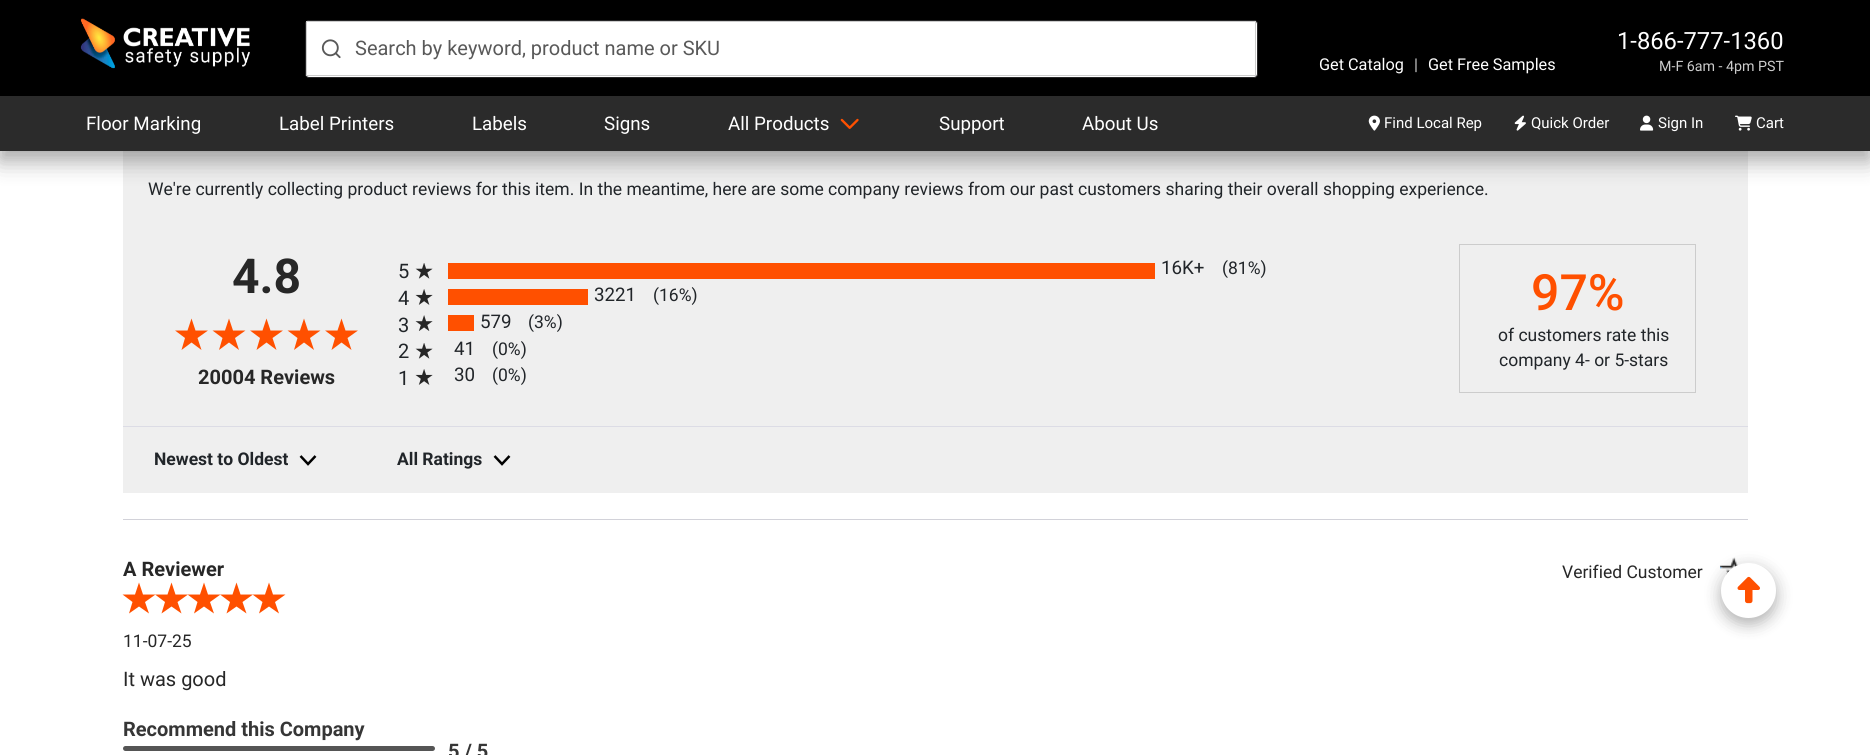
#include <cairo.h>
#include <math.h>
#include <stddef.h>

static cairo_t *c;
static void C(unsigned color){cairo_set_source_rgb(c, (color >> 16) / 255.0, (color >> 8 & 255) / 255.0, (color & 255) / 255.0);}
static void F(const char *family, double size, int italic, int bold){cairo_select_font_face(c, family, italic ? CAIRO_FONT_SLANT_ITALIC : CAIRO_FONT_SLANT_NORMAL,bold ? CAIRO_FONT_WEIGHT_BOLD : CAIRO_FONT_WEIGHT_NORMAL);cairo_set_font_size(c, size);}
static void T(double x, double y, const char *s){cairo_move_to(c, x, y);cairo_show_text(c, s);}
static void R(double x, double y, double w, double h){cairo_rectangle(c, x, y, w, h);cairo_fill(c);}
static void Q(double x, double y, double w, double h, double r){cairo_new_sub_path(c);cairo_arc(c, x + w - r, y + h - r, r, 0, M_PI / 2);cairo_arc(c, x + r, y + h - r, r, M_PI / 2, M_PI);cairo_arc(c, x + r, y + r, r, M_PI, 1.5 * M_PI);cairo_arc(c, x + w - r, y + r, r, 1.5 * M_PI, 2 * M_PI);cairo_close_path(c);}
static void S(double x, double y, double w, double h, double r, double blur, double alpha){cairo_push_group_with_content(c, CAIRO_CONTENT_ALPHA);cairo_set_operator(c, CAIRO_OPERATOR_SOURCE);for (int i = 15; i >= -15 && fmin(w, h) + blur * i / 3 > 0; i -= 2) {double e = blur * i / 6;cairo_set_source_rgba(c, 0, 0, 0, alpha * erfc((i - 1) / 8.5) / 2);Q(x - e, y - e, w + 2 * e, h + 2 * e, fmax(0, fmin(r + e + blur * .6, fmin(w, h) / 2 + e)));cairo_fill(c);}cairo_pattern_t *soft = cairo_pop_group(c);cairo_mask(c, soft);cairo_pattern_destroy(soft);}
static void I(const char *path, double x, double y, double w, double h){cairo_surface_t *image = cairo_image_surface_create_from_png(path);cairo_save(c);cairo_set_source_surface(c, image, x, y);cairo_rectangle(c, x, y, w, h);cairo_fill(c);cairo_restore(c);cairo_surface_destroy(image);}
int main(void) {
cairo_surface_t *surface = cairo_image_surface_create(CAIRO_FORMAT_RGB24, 1870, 755);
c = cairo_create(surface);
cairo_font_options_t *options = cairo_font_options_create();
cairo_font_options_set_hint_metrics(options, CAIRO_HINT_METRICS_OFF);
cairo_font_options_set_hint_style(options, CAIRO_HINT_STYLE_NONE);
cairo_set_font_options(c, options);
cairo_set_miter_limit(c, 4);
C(0xffffff);
cairo_paint(c);
C(0xefefef);
R(123,151,1625,275);
C(0x000000);
S(0,8,1870,151,0,12.5,.19);
S(0,10,1870,151,0,10.5,.2);
C(0x000000);
R(0,0,1870,96);
I("1.png",80,18,170,51);
C(0xffffff);
Q(305.5,20.5,952,57,3.5);
cairo_fill_preserve(c);
C(0x262627);
cairo_set_line_width(c,1);
cairo_stroke(c);
C(0xcccccc);
R(306,21,950,1);
R(306,75,49,1);
R(306,21,1,55);
I("2.png",321,39,20,20);
R(1255,21,1,55);
R(355,75,901,1);
F("Roboto",20,0,0);
C(0x595959);
T(355,55,"Search by keyword, product name or SKU");
F("Roboto",16.25,0,0);
C(0xffffff);
T(1319,70,"Get Catalog");
C(0xcccccc);
T(1414,70,"|");
C(0xffffff);
T(1428,70,"Get Free Samples");
F("Roboto",23.75,0,0);
T(1617,49,"1-866-777-1360");
F("Roboto",14.25,0,0);
C(0xcccccc);
T(1659,71,"M-F 6am - 4pm PST");
C(0x2b2b2b);
R(0,96,1870,55);
F("Roboto",18.75,0,0);
C(0xffffff);
T(86,130,"Floor Marking");
T(279,130,"Label Printers");
T(472,130,"Labels");
T(604,130,"Signs");
T(728,130,"All Products");
I("3.png",840,118,19,11);
T(939,130,"Support");
T(1082,130,"About Us");
I("4.png",1368,115,12,16);
F("Roboto",15,0,0);
T(1384,128,"Find Local Rep");
I("5.png",1514,115,12,16);
T(1531,128,"Quick Order");
I("6.png",1640,115,14,16);
T(1658,128,"Sign In");
I("7.png",1735,115,17,16);
T(1756,128,"Cart");
F("Roboto",17.5,0,0);
C(0x212529);
T(148,195,"We're currently collecting product reviews for this item. In the meantime, here are some company reviews from our past customers sharing their overall shopping experience.");
F("Roboto",48,0,1);
C(0x272727);
T(232,293,"4.8");
C(0xff5000);
cairo_new_path(c);
cairo_move_to(c,191.5,318.5);
cairo_line_to(c,195.5,330.5);
cairo_line_to(c,208,330.5);
cairo_line_to(c,197.5,338);
cairo_line_to(c,201.5,350);
cairo_line_to(c,191.5,342.5);
cairo_line_to(c,181.5,350);
cairo_line_to(c,185,338);
cairo_line_to(c,175,330.5);
cairo_line_to(c,187.5,330.5);
cairo_close_path(c);
cairo_fill(c);
cairo_new_path(c);
cairo_move_to(c,229,318.5);
cairo_line_to(c,233,330.5);
cairo_line_to(c,245.5,330.5);
cairo_line_to(c,235,338);
cairo_line_to(c,239,350);
cairo_line_to(c,229,342.5);
cairo_line_to(c,219,350);
cairo_line_to(c,222.5,338);
cairo_line_to(c,212.5,330.5);
cairo_line_to(c,225,330.5);
cairo_close_path(c);
cairo_fill(c);
cairo_new_path(c);
cairo_move_to(c,266.5,318.5);
cairo_line_to(c,270.5,330.5);
cairo_line_to(c,283,330.5);
cairo_line_to(c,272.5,338);
cairo_line_to(c,276.5,350);
cairo_line_to(c,266.5,342.5);
cairo_line_to(c,256.5,350);
cairo_line_to(c,260,338);
cairo_line_to(c,250,330.5);
cairo_line_to(c,262.5,330.5);
cairo_close_path(c);
cairo_fill(c);
cairo_new_path(c);
cairo_move_to(c,304,318.5);
cairo_line_to(c,308,330.5);
cairo_line_to(c,320.5,330.5);
cairo_line_to(c,310,338);
cairo_line_to(c,314,350);
cairo_line_to(c,304,342.5);
cairo_line_to(c,294,350);
cairo_line_to(c,297.5,338);
cairo_line_to(c,287.5,330.5);
cairo_line_to(c,300,330.5);
cairo_close_path(c);
cairo_fill(c);
cairo_new_path(c);
cairo_move_to(c,341.5,318.5);
cairo_line_to(c,345.5,330.5);
cairo_line_to(c,358,330.5);
cairo_line_to(c,347.5,338);
cairo_line_to(c,351.5,350);
cairo_line_to(c,341.5,342.5);
cairo_line_to(c,331.5,350);
cairo_line_to(c,335,338);
cairo_line_to(c,325,330.5);
cairo_line_to(c,337.5,330.5);
cairo_close_path(c);
cairo_fill(c);
F("Roboto",20,0,1);
C(0x272727);
T(198,384,"20004 Reviews");
F("Roboto",20,0,0);
C(0x212529);
T(398,278,"5");
I("8.png",415,263,18,16);
C(0xff5000);
R(448,263,707,16);
F("Roboto",18.75,0,0);
C(0x212529);
T(1161,274,"16K+");
F("Roboto",17.5,0,0);
T(1222,274,"(81%)");
F("Roboto",20,0,0);
T(398,305,"4");
I("9.png",415,289,18,16);
C(0xff5000);
R(448,289,140,16);
F("Roboto",18.75,0,0);
C(0x212529);
T(594,301,"3221");
F("Roboto",17.5,0,0);
T(653,301,"(16%)");
F("Roboto",20,0,0);
T(398,332,"3");
I("10.png",415,315,18,16);
C(0xff5000);
R(448,315,26,16);
F("Roboto",18.75,0,0);
C(0x212529);
T(480,328,"579");
F("Roboto",17.5,0,0);
T(528,328,"(3%)");
F("Roboto",20,0,0);
T(398,358,"2");
I("8.png",415,343,18,16);
F("Roboto",18.75,0,0);
T(454,355,"41");
F("Roboto",17.5,0,0);
T(492,355,"(0%)");
F("Roboto",20,0,0);
T(398,385,"1");
I("9.png",415,369,18,16);
F("Roboto",18.75,0,0);
T(454,381,"30");
F("Roboto",17.5,0,0);
T(492,381,"(0%)");
cairo_rectangle(c,1459.5,244.5,236,148);
C(0xcccccc);
cairo_stroke(c);
F("Roboto Medium",50,0,0);
C(0xff5000);
T(1531,310,"97%");
F("Roboto",17.5,0,0);
C(0x212529);
T(1498,341,"of customers rate this");
T(1499,366,"company 4- or 5-stars");
C(0xefefef);
R(123,427,1625,66);
C(0xdcdce5);
R(123,426,1625,1);
F("Roboto",17.5,0,1);
C(0x212529);
T(154,465,"Newest to Oldest");
cairo_new_path(c);
cairo_move_to(c,315.5,456);
cairo_line_to(c,308,464);
cairo_line_to(c,300.5,456);
C(0x000000);
cairo_set_line_width(c,2.5);
cairo_stroke(c);
C(0x212529);
T(397,465,"All Ratings");
cairo_new_path(c);
cairo_move_to(c,509.5,456);
cairo_line_to(c,502,464);
cairo_line_to(c,494.5,456);
C(0x000000);
cairo_stroke(c);
C(0xd2d2d9);
R(123,519,1625,1);
F("Roboto",20,0,1);
C(0x272727);
T(123,576,"A Reviewer");
F("Roboto",17.5,0,0);
T(1562,578,"Verified Customer");
I("11.png",1720,557,28,25);
C(0xff5000);
cairo_new_path(c);
cairo_move_to(c,139,582.5);
cairo_line_to(c,143,594.5);
cairo_line_to(c,155.5,594.5);
cairo_line_to(c,145,602);
cairo_line_to(c,149,613.5);
cairo_line_to(c,139,606.5);
cairo_line_to(c,129,613.5);
cairo_line_to(c,132.5,602);
cairo_line_to(c,122.5,594.5);
cairo_line_to(c,135,594.5);
cairo_close_path(c);
cairo_fill(c);
cairo_new_path(c);
cairo_move_to(c,171.5,582.5);
cairo_line_to(c,175.5,594.5);
cairo_line_to(c,188,594.5);
cairo_line_to(c,177.5,602);
cairo_line_to(c,181.5,613.5);
cairo_line_to(c,171.5,606.5);
cairo_line_to(c,161.5,613.5);
cairo_line_to(c,165,602);
cairo_line_to(c,155,594.5);
cairo_line_to(c,167.5,594.5);
cairo_close_path(c);
cairo_fill(c);
cairo_new_path(c);
cairo_move_to(c,204,582.5);
cairo_line_to(c,208,594.5);
cairo_line_to(c,220.5,594.5);
cairo_line_to(c,210,602);
cairo_line_to(c,214,613.5);
cairo_line_to(c,204,606.5);
cairo_line_to(c,194,613.5);
cairo_line_to(c,197.5,602);
cairo_line_to(c,187.5,594.5);
cairo_line_to(c,200,594.5);
cairo_close_path(c);
cairo_fill(c);
cairo_new_path(c);
cairo_move_to(c,236.5,582.5);
cairo_line_to(c,240.5,594.5);
cairo_line_to(c,253,594.5);
cairo_line_to(c,242.5,602);
cairo_line_to(c,246.5,613.5);
cairo_line_to(c,236.5,606.5);
cairo_line_to(c,226.5,613.5);
cairo_line_to(c,230,602);
cairo_line_to(c,220,594.5);
cairo_line_to(c,232.5,594.5);
cairo_close_path(c);
cairo_fill(c);
cairo_new_path(c);
cairo_move_to(c,269,582.5);
cairo_line_to(c,273,594.5);
cairo_line_to(c,285.5,594.5);
cairo_line_to(c,275,602);
cairo_line_to(c,279,613.5);
cairo_line_to(c,269,606.5);
cairo_line_to(c,259,613.5);
cairo_line_to(c,262.5,602);
cairo_line_to(c,252.5,594.5);
cairo_line_to(c,265,594.5);
cairo_close_path(c);
cairo_fill(c);
C(0x272727);
T(123,647,"11-07-25");
F("Roboto",20,0,0);
T(123,686,"It was good");
F("Roboto",20,0,1);
C(0x363636);
T(123,736,"Recommend this Company");
C(0x555555);
Q(123,746,312,5,2.5);
cairo_fill(c);
C(0x363636);
T(448,758,"5 / 5");
C(0x000000);
S(1721,568,55,55,27.5,9.5,.15);
S(1721,569,55,55,27.5,7,.18);
C(0xffffff);
cairo_arc(c,1748.5,590.5,27.5,0,2 * M_PI);
cairo_fill(c);
I("12.png",1737,576,23,28);
cairo_surface_write_to_png(surface, "o.png");
cairo_font_options_destroy(options);
cairo_destroy(c);
cairo_surface_destroy(surface);
return 0;
}
